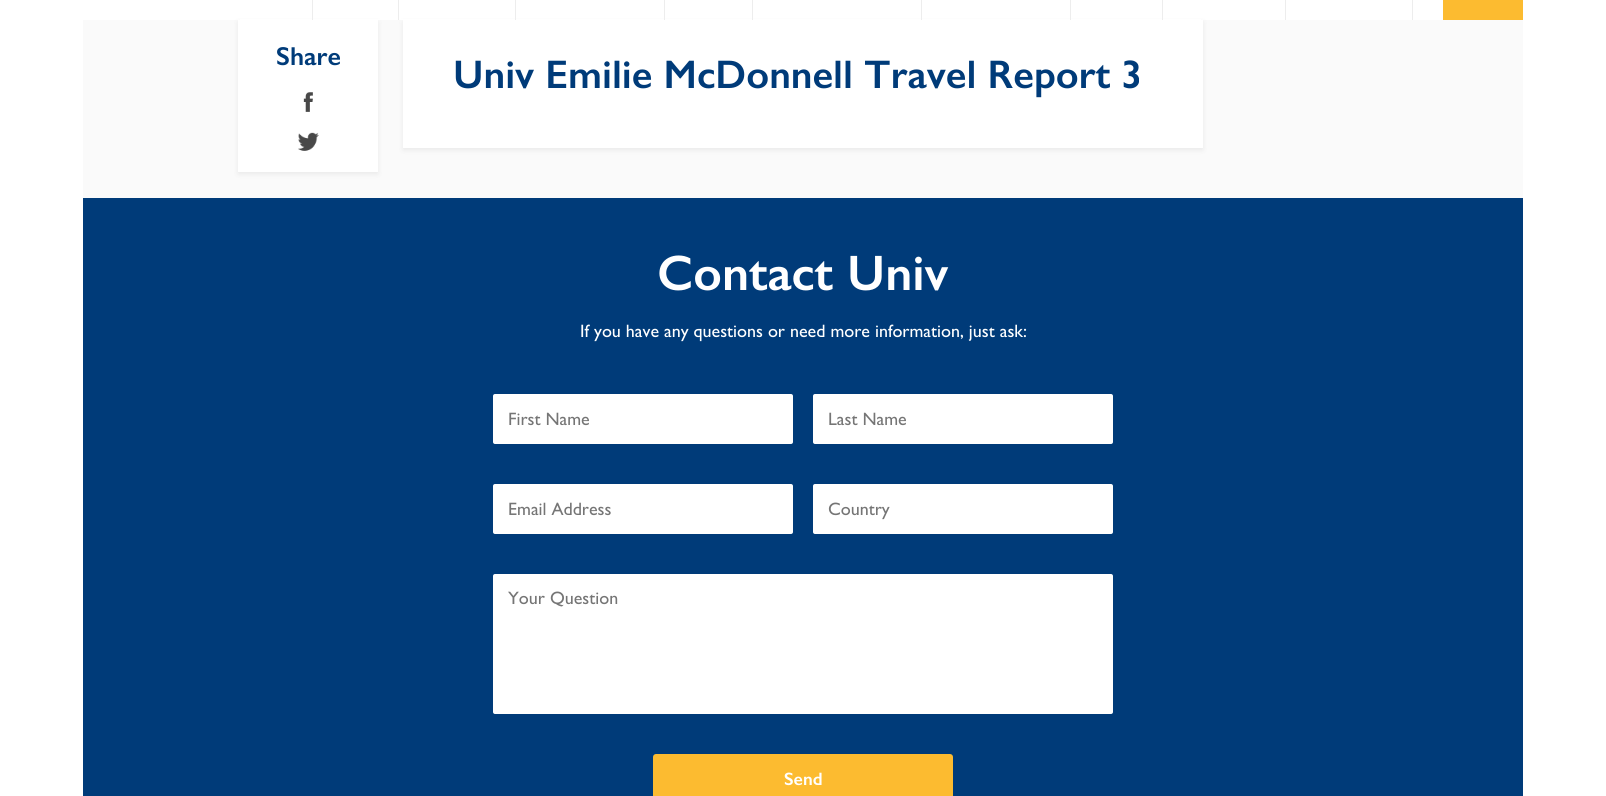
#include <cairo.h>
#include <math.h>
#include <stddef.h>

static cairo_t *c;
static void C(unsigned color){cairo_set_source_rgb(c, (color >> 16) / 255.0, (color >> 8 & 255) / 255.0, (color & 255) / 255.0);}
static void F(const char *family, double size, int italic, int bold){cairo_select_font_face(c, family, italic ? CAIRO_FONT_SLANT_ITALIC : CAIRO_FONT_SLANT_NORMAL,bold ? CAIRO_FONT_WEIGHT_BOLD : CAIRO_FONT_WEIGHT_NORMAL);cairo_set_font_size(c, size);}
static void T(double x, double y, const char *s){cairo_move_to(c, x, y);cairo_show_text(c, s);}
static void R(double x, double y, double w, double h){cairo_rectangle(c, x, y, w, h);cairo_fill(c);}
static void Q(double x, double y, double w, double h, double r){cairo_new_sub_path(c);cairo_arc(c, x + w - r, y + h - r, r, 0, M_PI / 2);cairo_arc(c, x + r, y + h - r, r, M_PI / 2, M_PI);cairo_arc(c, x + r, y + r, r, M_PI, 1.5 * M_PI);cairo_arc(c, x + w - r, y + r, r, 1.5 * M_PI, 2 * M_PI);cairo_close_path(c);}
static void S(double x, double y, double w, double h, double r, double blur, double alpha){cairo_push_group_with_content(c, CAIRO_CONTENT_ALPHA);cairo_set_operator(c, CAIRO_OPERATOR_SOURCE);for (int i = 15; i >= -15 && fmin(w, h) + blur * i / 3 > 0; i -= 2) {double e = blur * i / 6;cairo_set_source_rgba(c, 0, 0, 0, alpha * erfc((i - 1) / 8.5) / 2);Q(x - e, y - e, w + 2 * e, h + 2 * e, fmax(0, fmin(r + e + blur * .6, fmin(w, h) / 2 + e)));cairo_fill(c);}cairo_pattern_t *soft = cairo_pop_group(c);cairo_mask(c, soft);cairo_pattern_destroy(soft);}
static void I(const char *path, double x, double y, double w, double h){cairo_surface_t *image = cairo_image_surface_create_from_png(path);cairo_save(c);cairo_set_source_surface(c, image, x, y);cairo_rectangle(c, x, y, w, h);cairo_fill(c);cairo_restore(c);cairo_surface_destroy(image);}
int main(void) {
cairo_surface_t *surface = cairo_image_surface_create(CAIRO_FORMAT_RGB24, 1606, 796);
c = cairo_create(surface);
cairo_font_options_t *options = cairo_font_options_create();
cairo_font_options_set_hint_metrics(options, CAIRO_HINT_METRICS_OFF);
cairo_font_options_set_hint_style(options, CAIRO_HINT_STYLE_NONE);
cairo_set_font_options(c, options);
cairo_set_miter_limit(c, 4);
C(0xffffff);
cairo_paint(c);
C(0xfafafa);
R(83,20,1440,178);
C(0x000000);
S(238,22,140,152,0,3,.07);
S(403,22,800,128,0,3,.07);
C(0xffffff);
R(240,19,961,1);
C(0xededed);
R(312,0,1,20);
R(398,0,1,20);
R(515,0,1,20);
R(664,0,1,20);
R(752,0,1,20);
R(921,0,1,20);
R(1070,0,1,20);
R(1162,0,1,20);
R(1285,0,1,20);
R(1412,0,1,20);
C(0xfcbb30);
R(1443,0,80,20);
C(0xffffff);
R(238,20,140,152);
F("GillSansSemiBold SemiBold",26,0,0);
C(0x003b79);
T(276,65,"Share");
I("1.png",303,92,10,20);
I("2.png",298,132,21,19);
C(0xffffff);
R(403,20,800,128);
F("GillSansSemiBold SemiBold",40,0,0);
C(0x003b79);
T(453,88,"Univ Emilie McDonnell Travel Report 3");
R(83,198,1440,598);
F("GillSansSemiBold SemiBold",50,0,0);
C(0xffffff);
T(657,290,"Contact Univ");
F("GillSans",18,0,0);
T(580,337,"If you have any questions or need more information, just ask:");
Q(493,394,300,50,2);
cairo_fill(c);
C(0x757575);
T(508,425,"First Name");
C(0xffffff);
Q(813,394,300,50,2);
cairo_fill(c);
C(0x757575);
T(828,425,"Last Name");
C(0xffffff);
Q(493,484,300,50,2);
cairo_fill(c);
C(0x757575);
T(508,515,"Email Address");
C(0xffffff);
Q(813,484,300,50,2);
cairo_fill(c);
C(0x757575);
T(828,515,"Country");
C(0xffffff);
Q(493,574,620,140,2);
cairo_fill(c);
C(0x757575);
T(508,604,"Your Question");
C(0xfcbb30);
Q(653,754,300,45,3);
cairo_fill(c);
F("GillSansSemiBold SemiBold",18,0,0);
C(0xffffff);
T(784,785,"Send");
cairo_surface_write_to_png(surface, "o.png");
cairo_font_options_destroy(options);
cairo_destroy(c);
cairo_surface_destroy(surface);
return 0;
}
